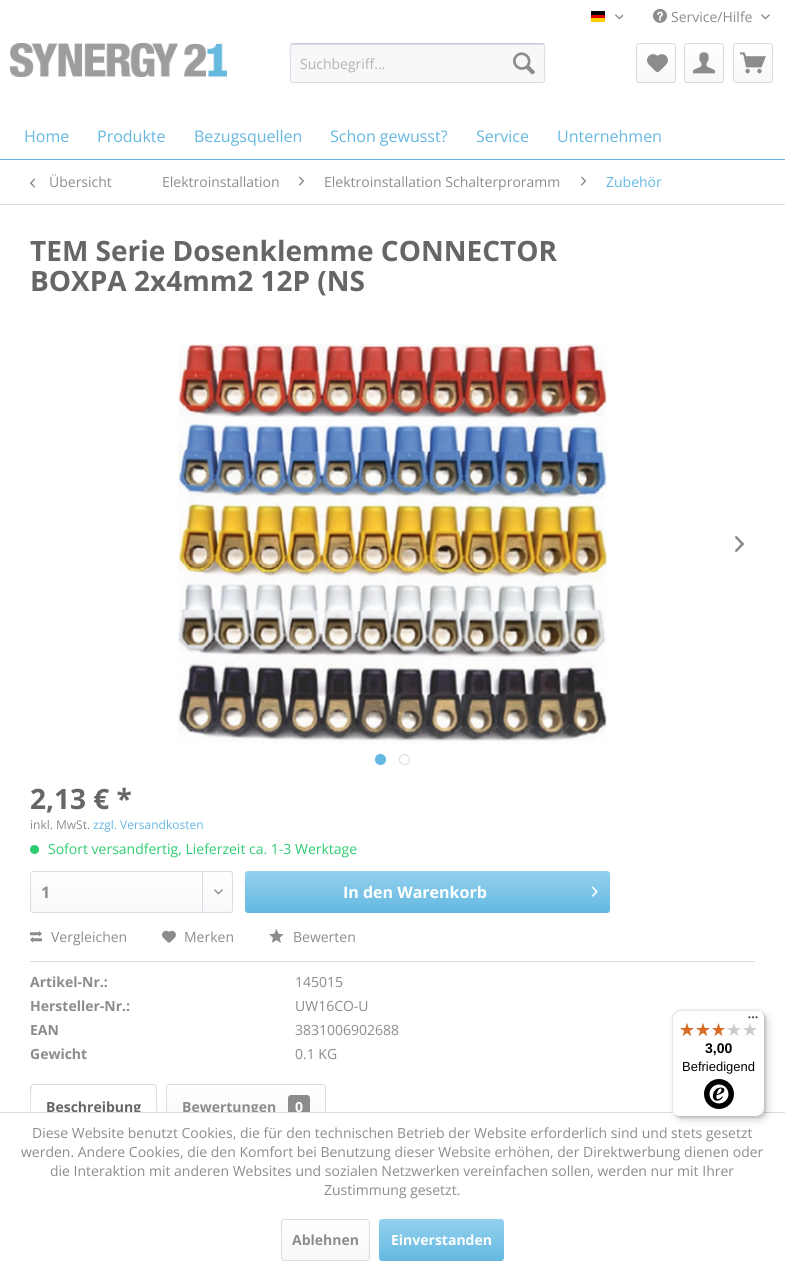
#include <cairo.h>
#include <math.h>
#include <stddef.h>

static cairo_t *c;
static void C(unsigned color){cairo_set_source_rgb(c, (color >> 16) / 255.0, (color >> 8 & 255) / 255.0, (color & 255) / 255.0);}
static void F(const char *family, double size, int italic, int bold){cairo_select_font_face(c, family, italic ? CAIRO_FONT_SLANT_ITALIC : CAIRO_FONT_SLANT_NORMAL,bold ? CAIRO_FONT_WEIGHT_BOLD : CAIRO_FONT_WEIGHT_NORMAL);cairo_set_font_size(c, size);}
static void T(double x, double y, const char *s){cairo_move_to(c, x, y);cairo_show_text(c, s);}
static void R(double x, double y, double w, double h){cairo_rectangle(c, x, y, w, h);cairo_fill(c);}
static void Q(double x, double y, double w, double h, double r){cairo_new_sub_path(c);cairo_arc(c, x + w - r, y + h - r, r, 0, M_PI / 2);cairo_arc(c, x + r, y + h - r, r, M_PI / 2, M_PI);cairo_arc(c, x + r, y + r, r, M_PI, 1.5 * M_PI);cairo_arc(c, x + w - r, y + r, r, 1.5 * M_PI, 2 * M_PI);cairo_close_path(c);}
static void S(double x, double y, double w, double h, double r, double blur, double alpha){cairo_push_group_with_content(c, CAIRO_CONTENT_ALPHA);cairo_set_operator(c, CAIRO_OPERATOR_SOURCE);for (int i = 15; i >= -15 && fmin(w, h) + blur * i / 3 > 0; i -= 2) {double e = blur * i / 6;cairo_set_source_rgba(c, 0, 0, 0, alpha * erfc((i - 1) / 8.5) / 2);Q(x - e, y - e, w + 2 * e, h + 2 * e, fmax(0, fmin(r + e + blur * .6, fmin(w, h) / 2 + e)));cairo_fill(c);}cairo_pattern_t *soft = cairo_pop_group(c);cairo_mask(c, soft);cairo_pattern_destroy(soft);}
static void I(const char *path, double x, double y, double w, double h){cairo_surface_t *image = cairo_image_surface_create_from_png(path);cairo_save(c);cairo_set_source_surface(c, image, x, y);cairo_rectangle(c, x, y, w, h);cairo_fill(c);cairo_restore(c);cairo_surface_destroy(image);}
int main(void) {
cairo_surface_t *surface = cairo_image_surface_create(CAIRO_FORMAT_RGB24, 785, 1271);
c = cairo_create(surface);
cairo_font_options_t *options = cairo_font_options_create();
cairo_font_options_set_hint_metrics(options, CAIRO_HINT_METRICS_OFF);
cairo_font_options_set_hint_style(options, CAIRO_HINT_STYLE_NONE);
cairo_set_font_options(c, options);
cairo_set_miter_limit(c, 4);
cairo_pattern_t *gradient;
C(0xffffff);
cairo_paint(c);
C(0x000000);
R(591,11,14,4);
C(0xdd0000);
R(591,15,14,3);
C(0xffce00);
R(591,18,14,4);
I("1.png",615,14,8,6);
I("2.png",653,8,14,15);
F("Open Sans",14,0,0);
C(0x8c8c8c);
T(671,22,"Service/Hilfe");
I("3.png",761,14,9,6);
I("4.png",10,43,217,34);
C(0xf8f8fa);
Q(290,43,255,40,3);
cairo_fill(c);
C(0xdadae5);
cairo_new_path(c);
cairo_move_to(c,293,45);
cairo_line_to(c,542,45);
cairo_curve_to(c,543,45,544,46,544,47);
cairo_curve_to(c,544,46,544,44,542,44);
cairo_line_to(c,293,44);
cairo_curve_to(c,291,44,291,46,291,47);
cairo_curve_to(c,291,46,292,45,293,45);
cairo_close_path(c);
cairo_fill(c);
cairo_new_path(c);
cairo_move_to(c,291,44);
cairo_line_to(c,293,43.5);
cairo_line_to(c,542,43.5);
cairo_line_to(c,544,44);
C(0xcbcbdb);
cairo_set_line_width(c,1);
cairo_stroke(c);
cairo_new_path(c);
cairo_move_to(c,544,44);
cairo_curve_to(c,545.5,46,544.5,60,544.5,63);
cairo_line_to(c,544.5,74.5);
cairo_curve_to(c,544.5,76,546,82.5,542,82.5);
cairo_line_to(c,293,82.5);
cairo_curve_to(c,289,82.5,290.5,76,290.5,74.5);
cairo_line_to(c,290.5,63);
cairo_curve_to(c,290.5,60,289.5,46,291,44);
C(0xdadae5);
cairo_stroke(c);
C(0xb2b2b2);
T(300,69,"Suchbegriff...");
I("5.png",513,52,22,23);
gradient = cairo_pattern_create_linear(656,44,656,82);
cairo_pattern_add_color_stop_rgba(gradient,0,1,1,1,1);
cairo_pattern_add_color_stop_rgba(gradient,1,0.973,0.973,0.98,1);
cairo_set_source(c,gradient);
cairo_pattern_destroy(gradient);
Q(637,44,38,38,2);
cairo_fill(c);
Q(636.5,43.5,39,39,2.5);
C(0xdadae5);
cairo_stroke(c);
I("6.png",647,54,21,19);
gradient = cairo_pattern_create_linear(704,44,704,82);
cairo_pattern_add_color_stop_rgba(gradient,0,1,1,1,1);
cairo_pattern_add_color_stop_rgba(gradient,1,0.973,0.973,0.98,1);
cairo_set_source(c,gradient);
cairo_pattern_destroy(gradient);
Q(685,44,38,38,2);
cairo_fill(c);
Q(684.5,43.5,39,39,2.5);
C(0xdadae5);
cairo_stroke(c);
I("7.png",693,52,22,22);
gradient = cairo_pattern_create_linear(753,44,753,82);
cairo_pattern_add_color_stop_rgba(gradient,0,1,1,1,1);
cairo_pattern_add_color_stop_rgba(gradient,1,0.973,0.973,0.98,1);
cairo_set_source(c,gradient);
cairo_pattern_destroy(gradient);
Q(734,44,38,38,2);
cairo_fill(c);
Q(733.5,43.5,39,39,2.5);
C(0xdadae5);
cairo_stroke(c);
I("8.png",740,52,26,22);
C(0x64b8e1);
R(0,159,785,1);
F("Open Sans",16,0,0);
T(24,142,"Home");
T(97,142,"Produkte");
T(194,142,"Bezugsquellen");
T(330,142,"Schon gewusst?");
T(476,142,"Service");
T(557,142,"Unternehmen");
C(0xdadae5);
R(0,204,785,1);
I("9.png",30,178,5,10);
F("Open Sans",14,0,0);
C(0x8c8c8c);
T(49,187,"Übersicht");
T(162,187,"Elektroinstallation");
I("10.png",299,176,5,10);
T(324,187,"Elektroinstallation Schalterproramm");
I("10.png",581,176,5,10);
C(0x64b8e1);
T(606,187,"Zubehör");
F("Open Sans",28,0,1);
C(0x666666);
T(30,261,"TEM Serie Dosenklemme CONNECTOR");
T(30,291,"BOXPA 2x4mm2 12P (NS");
I("11.png",178,344,429,400);
I("12.png",735,536,9,16);
C(0x64b8e1);
cairo_arc(c,380.5,759.5,5,0,2 * M_PI);
cairo_fill_preserve(c);
cairo_stroke(c);
cairo_arc(c,404.5,759.5,5,0,2 * M_PI);
C(0xdadae5);
cairo_stroke(c);
C(0x666666);
T(30,809,"2,13 € *");
F("Open Sans",12,0,0);
C(0x8c8c8c);
T(30,829,"inkl. MwSt.");
C(0x64b8e1);
T(93,829,"zzgl. Versandkosten");
C(0x2ecc71);
cairo_new_path(c);
cairo_arc(c,34.5,849.5,4.5,0,2 * M_PI);
cairo_fill(c);
F("Open Sans",14,0,0);
T(48,854,"Sofort versandfertig, Lieferzeit ca. 1-3 Werktage");
gradient = cairo_pattern_create_linear(132,872,132,912);
cairo_pattern_add_color_stop_rgba(gradient,0,1,1,1,1);
cairo_pattern_add_color_stop_rgba(gradient,1,0.973,0.973,0.98,1);
cairo_set_source(c,gradient);
cairo_pattern_destroy(gradient);
Q(31,872,201,40,2);
cairo_fill(c);
Q(30.5,871.5,202,41,2.5);
C(0xdadae5);
cairo_stroke(c);
F("Open Sans",16,0,1);
C(0x8c8c8c);
T(41,898,"1");
C(0xdadae5);
R(202,872,1,40);
I("13.png",214,889,9,6);
gradient = cairo_pattern_create_linear(428,871,428,913);
cairo_pattern_add_color_stop_rgba(gradient,0,0.58,0.82,0.933,1);
cairo_pattern_add_color_stop_rgba(gradient,1,0.392,0.722,0.882,1);
cairo_set_source(c,gradient);
cairo_pattern_destroy(gradient);
Q(245,871,365,42,3);
cairo_fill(c);
C(0xffffff);
T(343,898,"In den Warenkorb");
I("14.png",592,886,6,11);
C(0xdadae5);
R(30,961,725,1);
I("15.png",30,931,12,12);
F("Open Sans",14,0,0);
C(0x8c8c8c);
T(51,942,"Vergleichen");
I("16.png",162,930,14,13);
T(184,942,"Merken");
I("17.png",269,929,15,14);
T(293,942,"Bewerten");
F("Open Sans",14,0,1);
T(30,987,"Artikel-Nr.:");
F("Open Sans",14,0,0);
T(295,987,"145015");
F("Open Sans",14,0,1);
T(30,1011,"Hersteller-Nr.:");
F("Open Sans",14,0,0);
T(295,1011,"UW16CO-U");
F("Open Sans",14,0,1);
T(30,1035,"EAN");
F("Open Sans",14,0,0);
T(295,1035,"3831006902688");
F("Open Sans",14,0,1);
T(30,1059,"Gewicht");
F("Open Sans",14,0,0);
T(295,1059,"0.1 KG");
C(0xdadae5);
cairo_new_path(c);
cairo_move_to(c,33,1084);
cairo_line_to(c,31,1085);
cairo_line_to(c,32,1086);
cairo_line_to(c,33,1085);
cairo_line_to(c,154,1085);
cairo_line_to(c,155,1086);
cairo_line_to(c,156,1085);
cairo_line_to(c,154,1084);
cairo_close_path(c);
cairo_fill(c);
cairo_new_path(c);
cairo_move_to(c,157,1130);
cairo_curve_to(c,157,1125,158,1087,156,1085);
cairo_line_to(c,155,1086);
cairo_curve_to(c,157,1087,156,1124,156,1129);
cairo_close_path(c);
cairo_fill(c);
cairo_new_path(c);
cairo_move_to(c,30,1130);
cairo_line_to(c,31,1129);
cairo_curve_to(c,31,1124,30,1087,32,1086);
cairo_line_to(c,31,1085);
cairo_line_to(c,30,1087);
cairo_close_path(c);
cairo_fill(c);
F("Open Sans",14,0,1);
C(0x666666);
T(46,1112,"Beschreibung");
gradient = cairo_pattern_create_linear(246,1085,246,1129);
cairo_pattern_add_color_stop_rgba(gradient,0,1,1,1,1);
cairo_pattern_add_color_stop_rgba(gradient,1,0.973,0.973,0.98,1);
cairo_set_source(c,gradient);
cairo_pattern_destroy(gradient);
cairo_new_path(c);
cairo_move_to(c,169,1085);
cairo_line_to(c,323,1085);
cairo_curve_to(c,324,1085,325,1086,325,1087);
cairo_line_to(c,325,1129);
cairo_line_to(c,167,1129);
cairo_line_to(c,167,1087);
cairo_curve_to(c,167,1086,168,1085,169,1085);
cairo_close_path(c);
cairo_fill(c);
cairo_new_path(c);
cairo_move_to(c,169,1084.5);
cairo_line_to(c,323,1084.5);
cairo_curve_to(c,324.5,1084.5,325.5,1085.5,325.5,1087);
cairo_line_to(c,325.5,1129.5);
cairo_line_to(c,166.5,1129.5);
cairo_line_to(c,166.5,1087);
cairo_curve_to(c,166.5,1085.5,167.5,1084.5,169,1084.5);
cairo_close_path(c);
C(0xdadae5);
cairo_stroke(c);
C(0x8c8c8c);
T(182,1112,"Bewertungen");
Q(288,1095,22,23,3);
cairo_fill(c);
C(0xffffff);
T(295,1112,"0");
C(0xdadae5);
R(0,1112,785,1);
C(0x000000);
S(675,1013,93,107,8,4,.15);
S(673,1011,93,107,8,1,.15);
C(0xffffff);
Q(672,1010,93,107,8);
cairo_fill(c);
C(0xe5e5e5);
cairo_new_path(c);
cairo_move_to(c,681,1011);
cairo_line_to(c,758,1011);
cairo_curve_to(c,760,1011,762,1012,764,1014);
cairo_curve_to(c,762,1012,760,1010,757,1010);
cairo_line_to(c,680,1010);
cairo_curve_to(c,676,1010,672,1014,672,1018);
cairo_line_to(c,672,1109);
cairo_curve_to(c,672,1112,674,1114,676,1116);
cairo_curve_to(c,674,1114,673,1112,673,1110);
cairo_line_to(c,673,1019);
cairo_curve_to(c,673,1015,677,1011,681,1011);
cairo_close_path(c);
cairo_fill(c);
C(0xcccccc);
cairo_new_path(c);
cairo_move_to(c,673,1113);
cairo_curve_to(c,675,1115,677,1117,680,1117);
cairo_line_to(c,757,1117);
cairo_curve_to(c,761,1117,765,1113,765,1109);
cairo_line_to(c,765,1018);
cairo_curve_to(c,765,1015,763,1013,761,1011);
cairo_curve_to(c,763,1013,764,1015,764,1017);
cairo_line_to(c,764,1108);
cairo_curve_to(c,764,1112,760,1116,756,1116);
cairo_line_to(c,679,1116);
cairo_curve_to(c,677,1116,675,1115,673,1113);
cairo_close_path(c);
cairo_fill(c);
cairo_set_source_rgba(c,0.196,0.196,0.196,0.2);
cairo_new_path(c);
cairo_move_to(c,674,1114);
cairo_curve_to(c,675,1116,678,1117,680,1117);
cairo_line_to(c,757,1117);
cairo_curve_to(c,761,1117,765,1113,765,1109);
cairo_line_to(c,765,1018);
cairo_curve_to(c,765,1016,764,1013,762,1012);
cairo_curve_to(c,763,1013,764,1015,764,1017);
cairo_line_to(c,764,1108);
cairo_curve_to(c,764,1113,761,1116,756,1116);
cairo_line_to(c,679,1116);
cairo_curve_to(c,677,1116,675,1115,674,1114);
cairo_close_path(c);
cairo_fill(c);
cairo_set_source_rgba(c,1,1,1,0.3);
cairo_new_path(c);
cairo_move_to(c,764,1018);
cairo_curve_to(c,764,1013,761,1010,756,1010);
cairo_line_to(c,757,1010);
cairo_curve_to(c,761,1010,765,1014,765,1018);
cairo_line_to(c,765,1109);
cairo_curve_to(c,765,1113,761,1117,757,1117);
cairo_line_to(c,680,1117);
cairo_curve_to(c,676,1117,672,1113,672,1109);
cairo_line_to(c,672,1108);
cairo_curve_to(c,672,1113,675,1116,680,1116);
cairo_line_to(c,756,1116);
cairo_curve_to(c,761,1116,764,1113,764,1108);
cairo_close_path(c);
cairo_fill(c);
I("18.png",748,1016,10,3);
I("19.png",680,1023,14,13);
I("19.png",696,1023,14,13);
I("20.png",712,1023,13,13);
I("19.png",727,1023,14,13);
I("19.png",743,1023,14,13);
I("21.png",680,1023,14,13);
I("21.png",696,1023,14,13);
I("22.png",712,1023,13,13);
F("Liberation Sans",14,0,1);
C(0x000000);
T(705,1053,"3,00");
F("Liberation Sans",13,0,0);
T(682,1071,"Befriedigend");
I("23.png",704,1079,30,30);
C(0xffffff);
R(30,1113,296,17);
F("Open Sans",14,0,0);
C(0x8c8c8c);
T(32,1138,"Diese Website benutzt Cookies, die für den technischen Betrieb der Website erforderlich sind und stets gesetzt");
T(21,1157,"werden. Andere Cookies, die den Komfort bei Benutzung dieser Website erhöhen, der Direktwerbung dienen oder");
T(50,1176,"die Interaktion mit anderen Websites und sozialen Netzwerken vereinfachen sollen, werden nur mit Ihrer");
T(324,1195,"Zustimmung gesetzt.");
gradient = cairo_pattern_create_linear(326,1220,326,1260);
cairo_pattern_add_color_stop_rgba(gradient,0,1,1,1,1);
cairo_pattern_add_color_stop_rgba(gradient,1,0.973,0.973,0.98,1);
cairo_set_source(c,gradient);
cairo_pattern_destroy(gradient);
Q(282,1220,87,40,2);
cairo_fill(c);
Q(281.5,1219.5,88,41,2.5);
C(0xdadae5);
cairo_stroke(c);
F("Open Sans",14,0,1);
C(0x8c8c8c);
T(292,1245,"Ablehnen");
gradient = cairo_pattern_create_linear(442,1219,442,1261);
cairo_pattern_add_color_stop_rgba(gradient,0,0.58,0.82,0.933,1);
cairo_pattern_add_color_stop_rgba(gradient,1,0.392,0.722,0.882,1);
cairo_set_source(c,gradient);
cairo_pattern_destroy(gradient);
Q(379,1219,125,42,3);
cairo_fill(c);
C(0xffffff);
T(391,1245,"Einverstanden");
cairo_surface_write_to_png(surface, "o.png");
cairo_font_options_destroy(options);
cairo_destroy(c);
cairo_surface_destroy(surface);
return 0;
}
